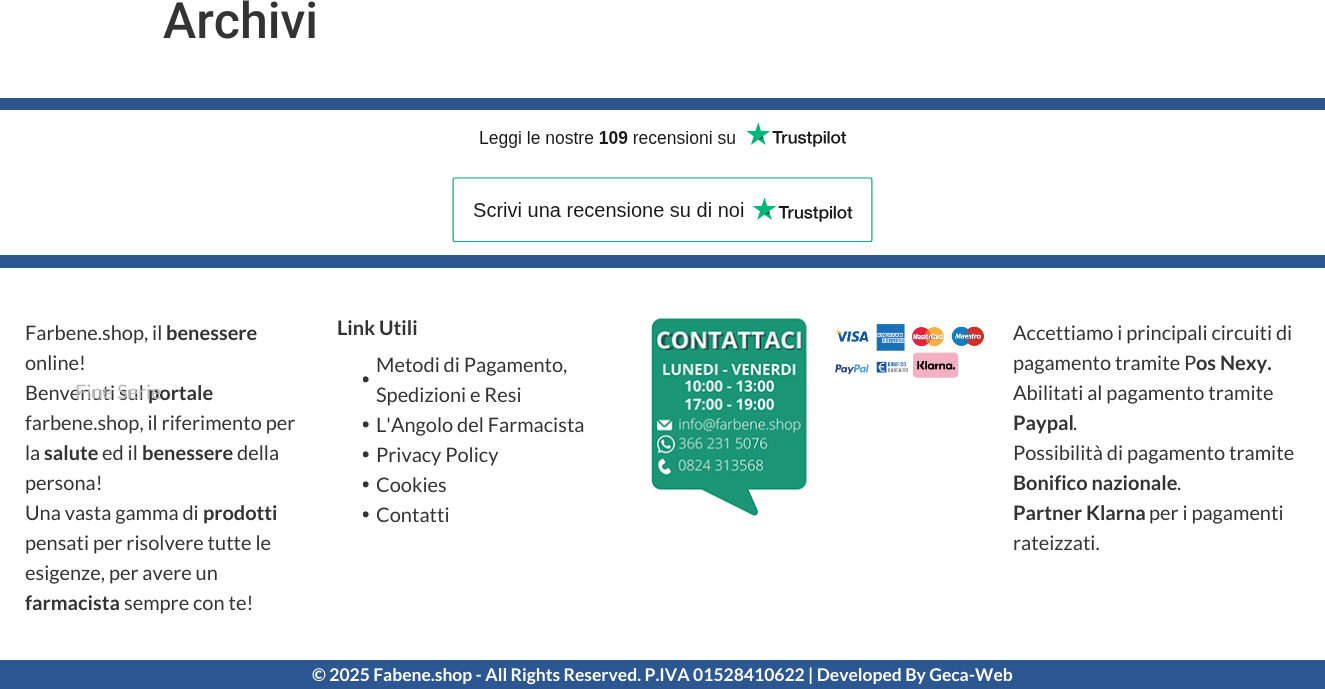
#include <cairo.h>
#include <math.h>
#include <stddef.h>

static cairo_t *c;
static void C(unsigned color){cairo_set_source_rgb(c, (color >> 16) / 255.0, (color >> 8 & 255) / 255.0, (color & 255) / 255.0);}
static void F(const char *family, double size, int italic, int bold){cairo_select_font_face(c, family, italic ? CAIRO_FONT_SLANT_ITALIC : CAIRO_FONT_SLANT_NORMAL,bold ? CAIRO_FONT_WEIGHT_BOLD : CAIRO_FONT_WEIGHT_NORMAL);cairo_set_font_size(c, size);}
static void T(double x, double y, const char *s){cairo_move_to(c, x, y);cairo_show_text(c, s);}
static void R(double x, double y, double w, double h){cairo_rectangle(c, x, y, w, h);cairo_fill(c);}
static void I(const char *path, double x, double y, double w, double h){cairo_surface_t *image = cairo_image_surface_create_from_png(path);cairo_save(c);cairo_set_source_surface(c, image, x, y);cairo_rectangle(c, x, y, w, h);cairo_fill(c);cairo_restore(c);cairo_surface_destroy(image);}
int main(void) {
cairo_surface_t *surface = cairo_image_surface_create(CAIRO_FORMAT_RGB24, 1325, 689);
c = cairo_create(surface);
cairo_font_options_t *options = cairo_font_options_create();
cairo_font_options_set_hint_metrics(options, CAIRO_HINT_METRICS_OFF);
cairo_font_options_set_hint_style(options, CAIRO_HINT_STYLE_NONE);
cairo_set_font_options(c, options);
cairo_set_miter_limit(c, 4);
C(0xffffff);
cairo_paint(c);
F("Roboto Medium",50,0,0);
C(0x333333);
T(163,38,"Archivi");
C(0x2d5791);
R(0,98,1325,12);
R(0,255,1325,13);
I("1.png",480,122,367,26);
I("2.png",452,177,421,66);
F("Lato",20,0,0);
C(0x333333);
T(25,340,"Farbene.shop, il");
F("Lato",20,0,1);
T(166,340,"benessere");
F("Lato",20,0,0);
T(25,370,"online!");
T(25,400,"Benvenuti sul");
F("Lato",20,0,1);
T(148,400,"portale");
F("Lato",20,0,0);
T(25,430,"farbene.shop, il riferimento per");
T(25,460,"la");
F("Lato",20,0,1);
T(44,460,"salute");
F("Lato",20,0,0);
T(102,460,"ed il");
F("Lato",20,0,1);
T(142,460,"benessere");
F("Lato",20,0,0);
T(237,460,"della");
T(25,490,"persona!");
T(25,520,"Una vasta gamma di");
F("Lato",20,0,1);
T(203,520,"prodotti");
F("Lato",20,0,0);
T(25,550,"pensati per risolvere tutte le");
T(25,580,"esigenze, per avere un");
F("Lato",20,0,1);
T(25,610,"farmacista");
F("Lato",20,0,0);
T(124,610,"sempre con te!");
F("Lato",20,0,1);
T(337,335,"Link Utili");
I("3.png",363,376,6,7);
F("Lato",20,0,0);
T(376,372,"Metodi di Pagamento,");
T(376,402,"Spedizioni e Resi");
I("3.png",363,421,6,7);
T(376,432,"L'Angolo del Farmacista");
I("3.png",363,451,6,7);
T(376,462,"Privacy Policy");
I("3.png",363,481,6,7);
T(376,492,"Cookies");
I("3.png",363,511,6,7);
T(376,522,"Contatti");
I("4.png",651,318,156,198);
I("5.png",835,323,150,55);
T(1013,340,"Accettiamo i principali circuiti di");
T(1013,370,"pagamento tramite P");
F("Lato",20,0,1);
T(1196,370,"os Nexy.");
F("Lato",20,0,0);
T(1013,400,"Abilitati al pagamento tramite");
F("Lato",20,0,1);
T(1013,430,"Paypal");
F("Lato",20,0,0);
T(1073,430,".");
T(1013,460,"Possibilità di pagamento tramite");
F("Lato",20,0,1);
T(1013,490,"Bonifico nazionale");
F("Lato",20,0,0);
T(1177,490,".");
F("Lato",20,0,1);
T(1013,520,"Partner Klarna");
F("Lato",20,0,0);
T(1149,520,"per i pagamenti");
T(1013,550,"rateizzati.");
C(0x2d5791);
R(0,660,1325,29);
F("Lato",17.5,0,1);
C(0xffffff);
T(312,681,"© 2025 Fabene.shop - All Rights Reserved. P.IVA 01528410622 | Developed By Geca-Web");
F("Lato",20,0,0);
C(0xb9b9b9);
T(75,399,"Fine Serie");
cairo_surface_write_to_png(surface, "o.png");
cairo_font_options_destroy(options);
cairo_destroy(c);
cairo_surface_destroy(surface);
return 0;
}
